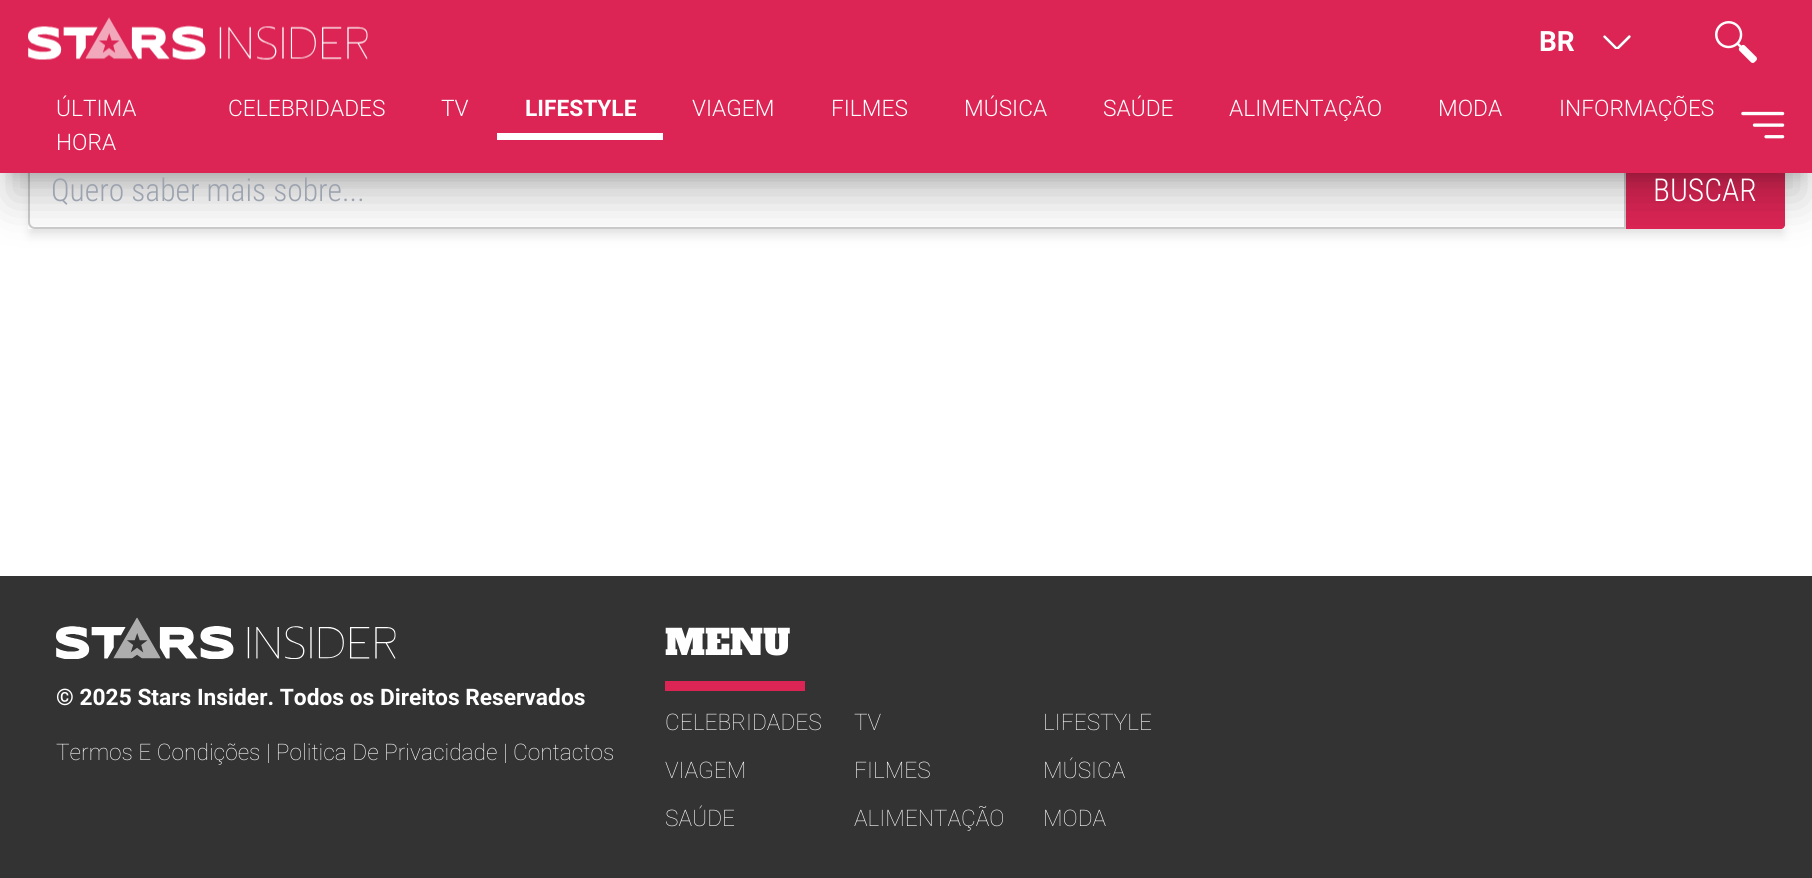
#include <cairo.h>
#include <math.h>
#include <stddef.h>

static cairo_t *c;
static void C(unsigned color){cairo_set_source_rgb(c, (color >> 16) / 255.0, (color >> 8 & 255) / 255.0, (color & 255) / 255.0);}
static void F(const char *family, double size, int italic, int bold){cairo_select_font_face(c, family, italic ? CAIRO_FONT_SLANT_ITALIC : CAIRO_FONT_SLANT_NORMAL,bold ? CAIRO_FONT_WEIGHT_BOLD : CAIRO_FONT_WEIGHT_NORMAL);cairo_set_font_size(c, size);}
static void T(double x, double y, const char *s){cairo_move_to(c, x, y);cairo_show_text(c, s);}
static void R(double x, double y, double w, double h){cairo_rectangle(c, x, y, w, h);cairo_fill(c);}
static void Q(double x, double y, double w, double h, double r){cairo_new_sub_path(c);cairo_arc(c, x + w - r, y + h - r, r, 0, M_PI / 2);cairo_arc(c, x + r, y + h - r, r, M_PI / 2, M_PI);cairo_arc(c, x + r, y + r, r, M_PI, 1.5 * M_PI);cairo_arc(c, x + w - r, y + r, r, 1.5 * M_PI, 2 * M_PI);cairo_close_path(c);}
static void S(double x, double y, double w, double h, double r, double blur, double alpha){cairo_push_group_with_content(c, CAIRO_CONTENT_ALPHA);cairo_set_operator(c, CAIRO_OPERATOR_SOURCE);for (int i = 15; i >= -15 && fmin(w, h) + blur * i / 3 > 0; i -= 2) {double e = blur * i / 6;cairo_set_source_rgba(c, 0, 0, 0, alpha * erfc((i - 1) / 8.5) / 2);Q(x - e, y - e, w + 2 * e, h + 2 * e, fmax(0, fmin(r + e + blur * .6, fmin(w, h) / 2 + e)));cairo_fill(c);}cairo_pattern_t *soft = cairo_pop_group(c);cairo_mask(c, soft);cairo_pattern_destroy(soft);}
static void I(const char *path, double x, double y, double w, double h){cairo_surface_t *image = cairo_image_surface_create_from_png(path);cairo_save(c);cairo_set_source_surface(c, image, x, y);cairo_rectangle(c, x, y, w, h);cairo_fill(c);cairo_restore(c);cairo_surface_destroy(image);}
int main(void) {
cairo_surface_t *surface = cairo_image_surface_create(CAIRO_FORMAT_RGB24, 1812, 878);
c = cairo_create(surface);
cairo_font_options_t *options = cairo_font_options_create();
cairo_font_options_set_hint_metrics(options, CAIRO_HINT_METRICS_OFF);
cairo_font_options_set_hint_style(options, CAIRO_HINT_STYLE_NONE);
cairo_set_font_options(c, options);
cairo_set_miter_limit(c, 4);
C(0xffffff);
cairo_paint(c);
cairo_save(c);
cairo_set_fill_rule(c,CAIRO_FILL_RULE_EVEN_ODD);
cairo_new_path(c);
cairo_move_to(c,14,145);
cairo_line_to(c,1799,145);
cairo_line_to(c,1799,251);
cairo_line_to(c,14,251);
cairo_close_path(c);
cairo_move_to(c,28,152);
cairo_line_to(c,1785,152);
cairo_line_to(c,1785,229);
cairo_line_to(c,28,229);
cairo_close_path(c);
cairo_clip(c);
C(0x000000);
S(30,161,1753,74,0,5,.1);
cairo_restore(c);
cairo_new_path(c);
cairo_move_to(c,35,153);
cairo_line_to(c,1625,153);
cairo_line_to(c,1625,228);
cairo_line_to(c,35,228);
cairo_curve_to(c,31.5,228,29,225.5,29,222);
cairo_line_to(c,29,159);
cairo_curve_to(c,29,155.5,31.5,153,35,153);
cairo_close_path(c);
C(0xcccccc);
cairo_stroke(c);
C(0xdc2555);
cairo_new_path(c);
cairo_move_to(c,1626,152);
cairo_line_to(c,1781,152);
cairo_curve_to(c,1783,152,1785,154,1785,156);
cairo_line_to(c,1785,225);
cairo_curve_to(c,1785,227,1783,229,1781,229);
cairo_line_to(c,1626,229);
cairo_close_path(c);
cairo_fill(c);
C(0x000000);
S(11,25,1792,152,0,9,.2);
S(9,44,1795,156,0,22,.2);
C(0xdc2555);
R(0,0,1812,173);
I("1.png",28,17,340,43);
F("Roboto",28,0,1);
C(0xffffff);
T(1539,51,"BR");
I("2.png",1603,35,28,14);
I("3.png",1715,21,42,42);
F("Roboto Light",22.75,0,0);
T(56,116,"ÚLTIMA");
T(56,150,"HORA");
T(228,116,"CELEBRIDADES");
T(441,116,"TV");
F("Roboto",22.75,0,1);
T(525,116,"LIFESTYLE");
R(497,133,166,7);
F("Roboto Light",22.75,0,0);
T(692,116,"VIAGEM");
T(831,116,"FILMES");
T(964,116,"MÚSICA");
T(1103,116,"SAÚDE");
T(1229,116,"ALIMENTAÇÃO");
T(1438,116,"MODA");
T(1559,116,"INFORMAÇÕES");
I("4.png",1741,111,44,28);
F("Roboto Condensed Light",31.5,0,0);
C(0x9ca3af);
T(51,201,"Quero saber mais sobre...");
C(0xffffff);
T(1653,201,"BUSCAR");
C(0x333333);
R(0,576,1812,302);
I("5.png",56,617,340,42);
F("Roboto",22.75,0,1);
C(0xffffff);
T(56,705,"© 2025 Stars Insider. Todos os Direitos Reservados");
F("Roboto Thin",22.75,0,0);
T(56,760,"Termos E Condições | Politica De Privacidade | Contactos");
F("Alfa Slab One",35,0,0);
T(665,655,"MENU");
C(0xdc2555);
R(665,681,140,10);
F("Roboto Thin",22.75,0,0);
C(0xffffff);
T(665,730,"CELEBRIDADES");
T(854,730,"TV");
T(1043,730,"LIFESTYLE");
T(665,778,"VIAGEM");
T(854,778,"FILMES");
T(1043,778,"MÚSICA");
T(665,826,"SAÚDE");
T(854,826,"ALIMENTAÇÃO");
T(1043,826,"MODA");
cairo_surface_write_to_png(surface, "o.png");
cairo_font_options_destroy(options);
cairo_destroy(c);
cairo_surface_destroy(surface);
return 0;
}
